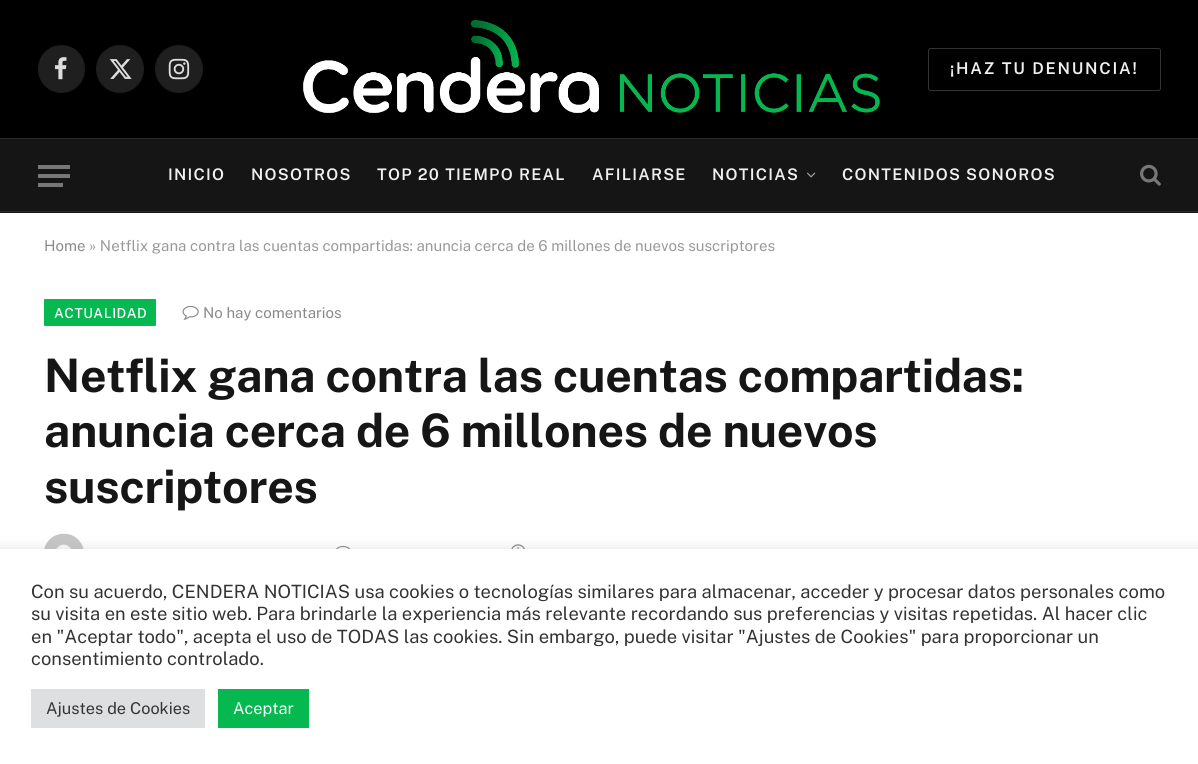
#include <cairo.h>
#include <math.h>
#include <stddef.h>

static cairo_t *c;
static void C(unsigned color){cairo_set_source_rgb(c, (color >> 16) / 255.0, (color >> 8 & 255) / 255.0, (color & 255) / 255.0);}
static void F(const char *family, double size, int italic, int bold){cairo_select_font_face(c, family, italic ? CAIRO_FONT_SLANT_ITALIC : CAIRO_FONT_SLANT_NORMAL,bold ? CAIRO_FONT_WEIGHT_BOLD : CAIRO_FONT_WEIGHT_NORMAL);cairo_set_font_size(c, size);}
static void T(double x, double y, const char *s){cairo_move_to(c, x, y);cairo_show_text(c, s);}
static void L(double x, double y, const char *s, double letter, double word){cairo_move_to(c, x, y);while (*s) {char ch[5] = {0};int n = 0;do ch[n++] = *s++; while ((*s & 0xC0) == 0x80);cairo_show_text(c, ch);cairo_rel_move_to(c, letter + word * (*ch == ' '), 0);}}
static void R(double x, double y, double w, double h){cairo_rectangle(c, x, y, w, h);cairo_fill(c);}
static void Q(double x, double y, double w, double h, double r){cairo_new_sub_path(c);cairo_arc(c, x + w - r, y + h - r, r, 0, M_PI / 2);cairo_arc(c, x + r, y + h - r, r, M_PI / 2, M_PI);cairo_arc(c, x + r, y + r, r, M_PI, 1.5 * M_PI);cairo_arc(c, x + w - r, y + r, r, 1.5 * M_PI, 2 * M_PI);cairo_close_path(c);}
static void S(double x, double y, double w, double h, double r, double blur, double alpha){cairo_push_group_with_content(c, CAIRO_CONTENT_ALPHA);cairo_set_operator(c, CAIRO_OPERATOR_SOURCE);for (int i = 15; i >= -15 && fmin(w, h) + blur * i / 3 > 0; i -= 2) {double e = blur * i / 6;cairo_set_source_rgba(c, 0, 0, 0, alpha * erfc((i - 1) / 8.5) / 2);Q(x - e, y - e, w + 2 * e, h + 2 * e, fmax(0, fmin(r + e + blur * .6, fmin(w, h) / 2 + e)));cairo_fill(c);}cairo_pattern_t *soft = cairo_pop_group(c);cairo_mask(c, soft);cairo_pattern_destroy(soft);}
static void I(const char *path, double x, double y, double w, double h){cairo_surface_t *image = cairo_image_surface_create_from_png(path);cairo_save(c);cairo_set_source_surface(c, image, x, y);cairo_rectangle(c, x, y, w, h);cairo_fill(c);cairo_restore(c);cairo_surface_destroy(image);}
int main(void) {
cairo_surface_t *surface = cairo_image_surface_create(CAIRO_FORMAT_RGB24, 1198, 764);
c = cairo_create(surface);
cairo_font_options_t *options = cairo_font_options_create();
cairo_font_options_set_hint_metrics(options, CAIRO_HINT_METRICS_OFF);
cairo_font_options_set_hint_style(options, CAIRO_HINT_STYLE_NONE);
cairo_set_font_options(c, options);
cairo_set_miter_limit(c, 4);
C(0xffffff);
cairo_paint(c);
C(0x000000);
R(0,0,1198,138);
C(0x1f1f1f);
Q(38,45,47,48,23.5);
cairo_fill(c);
Q(38.5,45.5,46,47,23);
cairo_set_source_rgba(c,0,0,0,0.09);
cairo_set_line_width(c,1);
cairo_stroke(c);
I("1.png",55,57,12,23);
C(0x1f1f1f);
cairo_arc(c,120,69,24,0,2 * M_PI);
cairo_fill(c);
cairo_arc(c,120,69,23.5,0,2 * M_PI);
cairo_set_source_rgba(c,0,0,0,0.09);
cairo_stroke(c);
I("2.png",109,59,23,20);
C(0x1f1f1f);
cairo_arc(c,179,69,24,0,2 * M_PI);
cairo_fill(c);
cairo_arc(c,179,69,23.5,0,2 * M_PI);
cairo_set_source_rgba(c,0,0,0,0.09);
cairo_stroke(c);
I("3.png",168,58,22,22);
I("4.png",303,20,577,93);
Q(928.5,48.5,232,42,2);
C(0x333333);
cairo_stroke(c);
F("Public Sans SemiBold",16.25,0,0);
C(0xf0f0f0);
L(950,74,"¡HAZ TU DENUNCIA!",1.75,0);
C(0x151515);
R(0,139,1198,74);
C(0x2c2c2c);
R(0,138,1198,1);
R(0,211,1198,1);
C(0x777777);
R(38,183,25,4);
R(38,165,32,4);
R(38,174,32,4);
F("Public Sans SemiBold",16,0,0);
C(0xf0f0f0);
L(168,180,"INICIO",1.25,0);
L(251,180,"NOSOTROS",1.25,0);
L(377,180,"TOP 20 TIEMPO REAL",1.25,0);
L(592,180,"AFILIARSE",1.25,0);
L(712,180,"NOTICIAS",1.25,0);
I("5.png",806,172,10,6);
L(842,180,"CONTENIDOS SONOROS",1.25,0);
I("6.png",1140,164,21,22);
F("Public Sans",15,0,0);
C(0x8a8a8a);
T(44,251,"Home");
C(0x999999);
T(89,251,"» Netflix gana contra las cuentas compartidas: anuncia cerca de 6 millones de nuevos suscriptores");
C(0x06b850);
Q(44,299,112,27,1);
cairo_fill(c);
F("Public Sans Medium",13.75,0,0);
C(0xffffff);
L(54,318,"ACTUALIDAD",.5,0);
I("7.png",182,305,17,15);
F("Public Sans",15,0,0);
C(0x8a8a8a);
T(203,318,"No hay comentarios");
F("Public Sans",46.2,0,1);
C(0x161616);
L(44,392,"Netflix gana contra las cuentas compartidas:",-.25,0);
L(44,447,"anuncia cerca de 6 millones de nuevos",-.25,0);
L(44,503,"suscriptores",-.25,0);
C(0x000000);
S(44,534,40,40,20,.5,.2);
I("8.png",44,534,39,15);
I("9.png",336,545,15,4);
I("10.png",511,544,14,5);
C(0xacabab);
S(0,548,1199,216,0,6,.3);
C(0xffffff);
R(0,549,1198,215);
F("Public Sans",18.33,0,0);
C(0x333333);
T(31,598,"Con su acuerdo, CENDERA NOTICIAS usa cookies o tecnologías similares para almacenar, acceder y procesar datos personales como");
T(31,620,"su visita en este sitio web. Para brindarle la experiencia más relevante recordando sus preferencias y visitas repetidas. Al hacer clic");
T(31,643,"en \"Aceptar todo\", acepta el uso de TODAS las cookies. Sin embargo, puede visitar \"Ajustes de Cookies\" para proporcionar un");
T(31,665,"consentimiento controlado.");
C(0xdedfe0);
R(31,689,174,39);
F("Public Sans",16.25,0,0);
C(0x333333);
T(46,714,"Ajustes de Cookies");
C(0x06b850);
R(218,689,91,39);
C(0xffffff);
T(233,714,"Aceptar");
cairo_surface_write_to_png(surface, "o.png");
cairo_font_options_destroy(options);
cairo_destroy(c);
cairo_surface_destroy(surface);
return 0;
}
